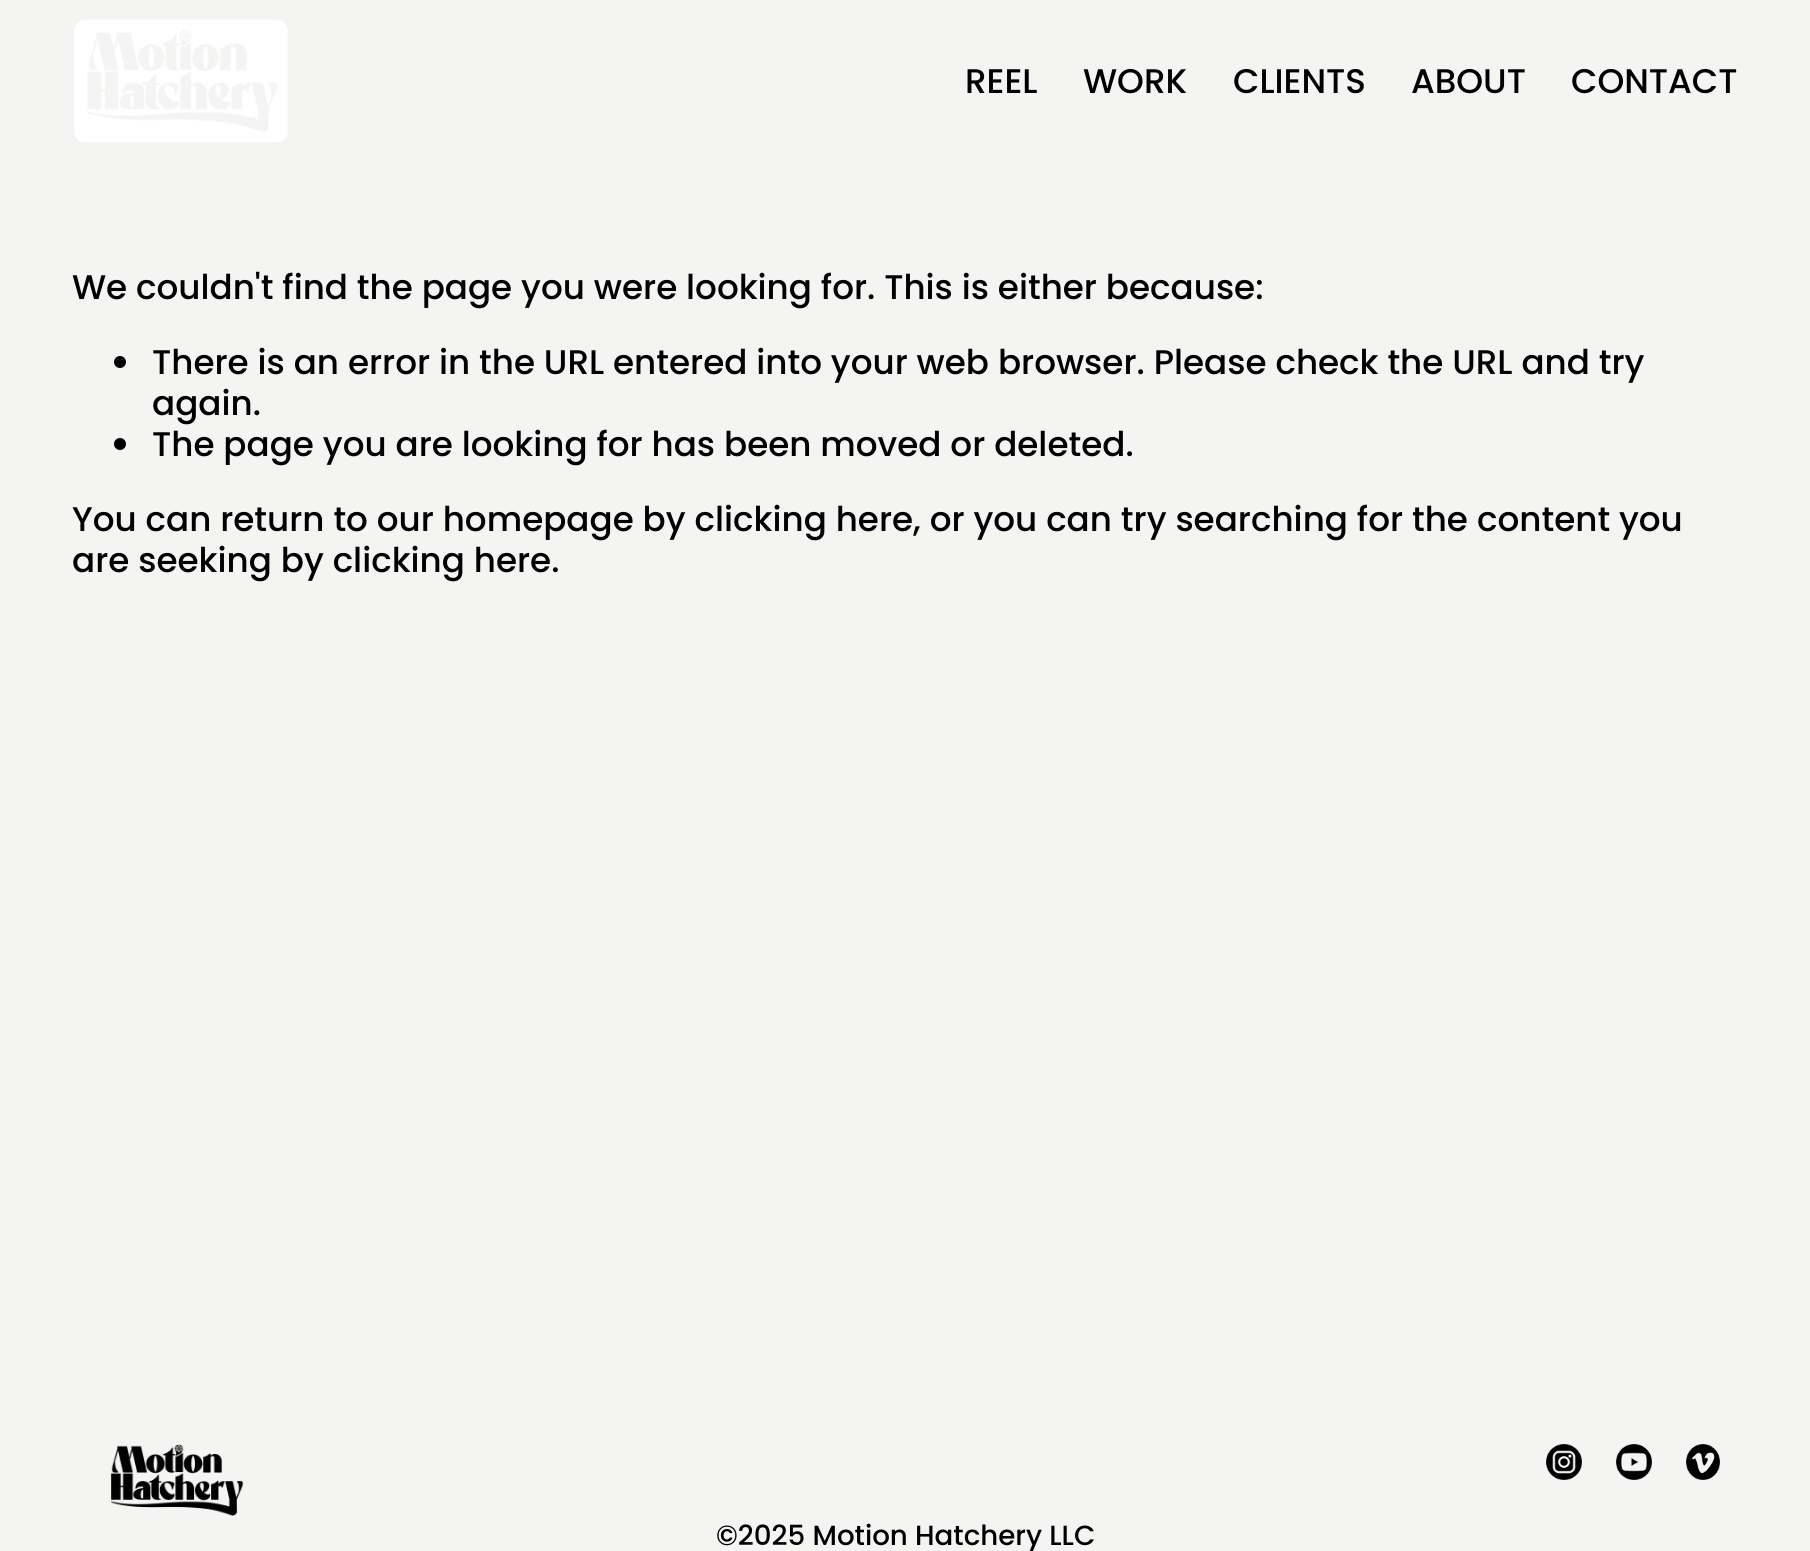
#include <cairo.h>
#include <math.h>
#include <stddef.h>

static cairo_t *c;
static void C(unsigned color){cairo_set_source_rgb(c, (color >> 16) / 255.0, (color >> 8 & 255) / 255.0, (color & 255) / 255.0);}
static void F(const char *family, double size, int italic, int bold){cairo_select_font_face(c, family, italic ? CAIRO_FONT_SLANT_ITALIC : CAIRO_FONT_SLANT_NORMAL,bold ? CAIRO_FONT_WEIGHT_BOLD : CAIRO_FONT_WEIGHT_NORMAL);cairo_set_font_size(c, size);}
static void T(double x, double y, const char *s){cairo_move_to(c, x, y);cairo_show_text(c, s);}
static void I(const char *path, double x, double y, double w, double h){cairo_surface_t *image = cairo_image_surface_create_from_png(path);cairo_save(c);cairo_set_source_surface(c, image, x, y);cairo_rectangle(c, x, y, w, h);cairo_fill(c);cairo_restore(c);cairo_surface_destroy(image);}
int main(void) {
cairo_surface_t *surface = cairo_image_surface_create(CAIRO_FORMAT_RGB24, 1810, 1551);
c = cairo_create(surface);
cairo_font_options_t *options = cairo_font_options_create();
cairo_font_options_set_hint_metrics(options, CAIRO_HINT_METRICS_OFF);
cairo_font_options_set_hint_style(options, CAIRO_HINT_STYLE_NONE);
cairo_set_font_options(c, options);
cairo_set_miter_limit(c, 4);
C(0xf4f4f3);
cairo_paint(c);
I("1.png",74,19,214,124);
F("Poppins Medium",34.15,0,0);
C(0x000000);
T(965,93,"REEL");
T(1083,93,"WORK");
T(1233,93,"CLIENTS");
T(1411,93,"ABOUT");
T(1571,93,"CONTACT");
T(72,299,"We couldn't find the page you were looking for. This is either because:");
cairo_new_path(c);
cairo_arc(c,120,362,6,0,2 * M_PI);
cairo_fill(c);
T(152,374,"There is an error in the URL entered into your web browser. Please check the URL and try");
T(152,415,"again.");
cairo_new_path(c);
cairo_arc(c,120,444,6,0,2 * M_PI);
cairo_fill(c);
T(152,456,"The page you are looking for has been moved or deleted.");
T(72,531,"You can return to our homepage by clicking here, or you can try searching for the");
T(1477,531,"content you");
T(72,572,"are seeking by clicking here.");
I("2.png",111,1444,133,72);
I("3.png",1546,1444,36,36);
I("4.png",1616,1444,36,36);
I("5.png",1686,1444,34,36);
F("Poppins Medium",27.7,0,0);
T(716,1545,"©2025 Motion Hatchery LLC");
cairo_surface_write_to_png(surface, "o.png");
cairo_font_options_destroy(options);
cairo_destroy(c);
cairo_surface_destroy(surface);
return 0;
}
